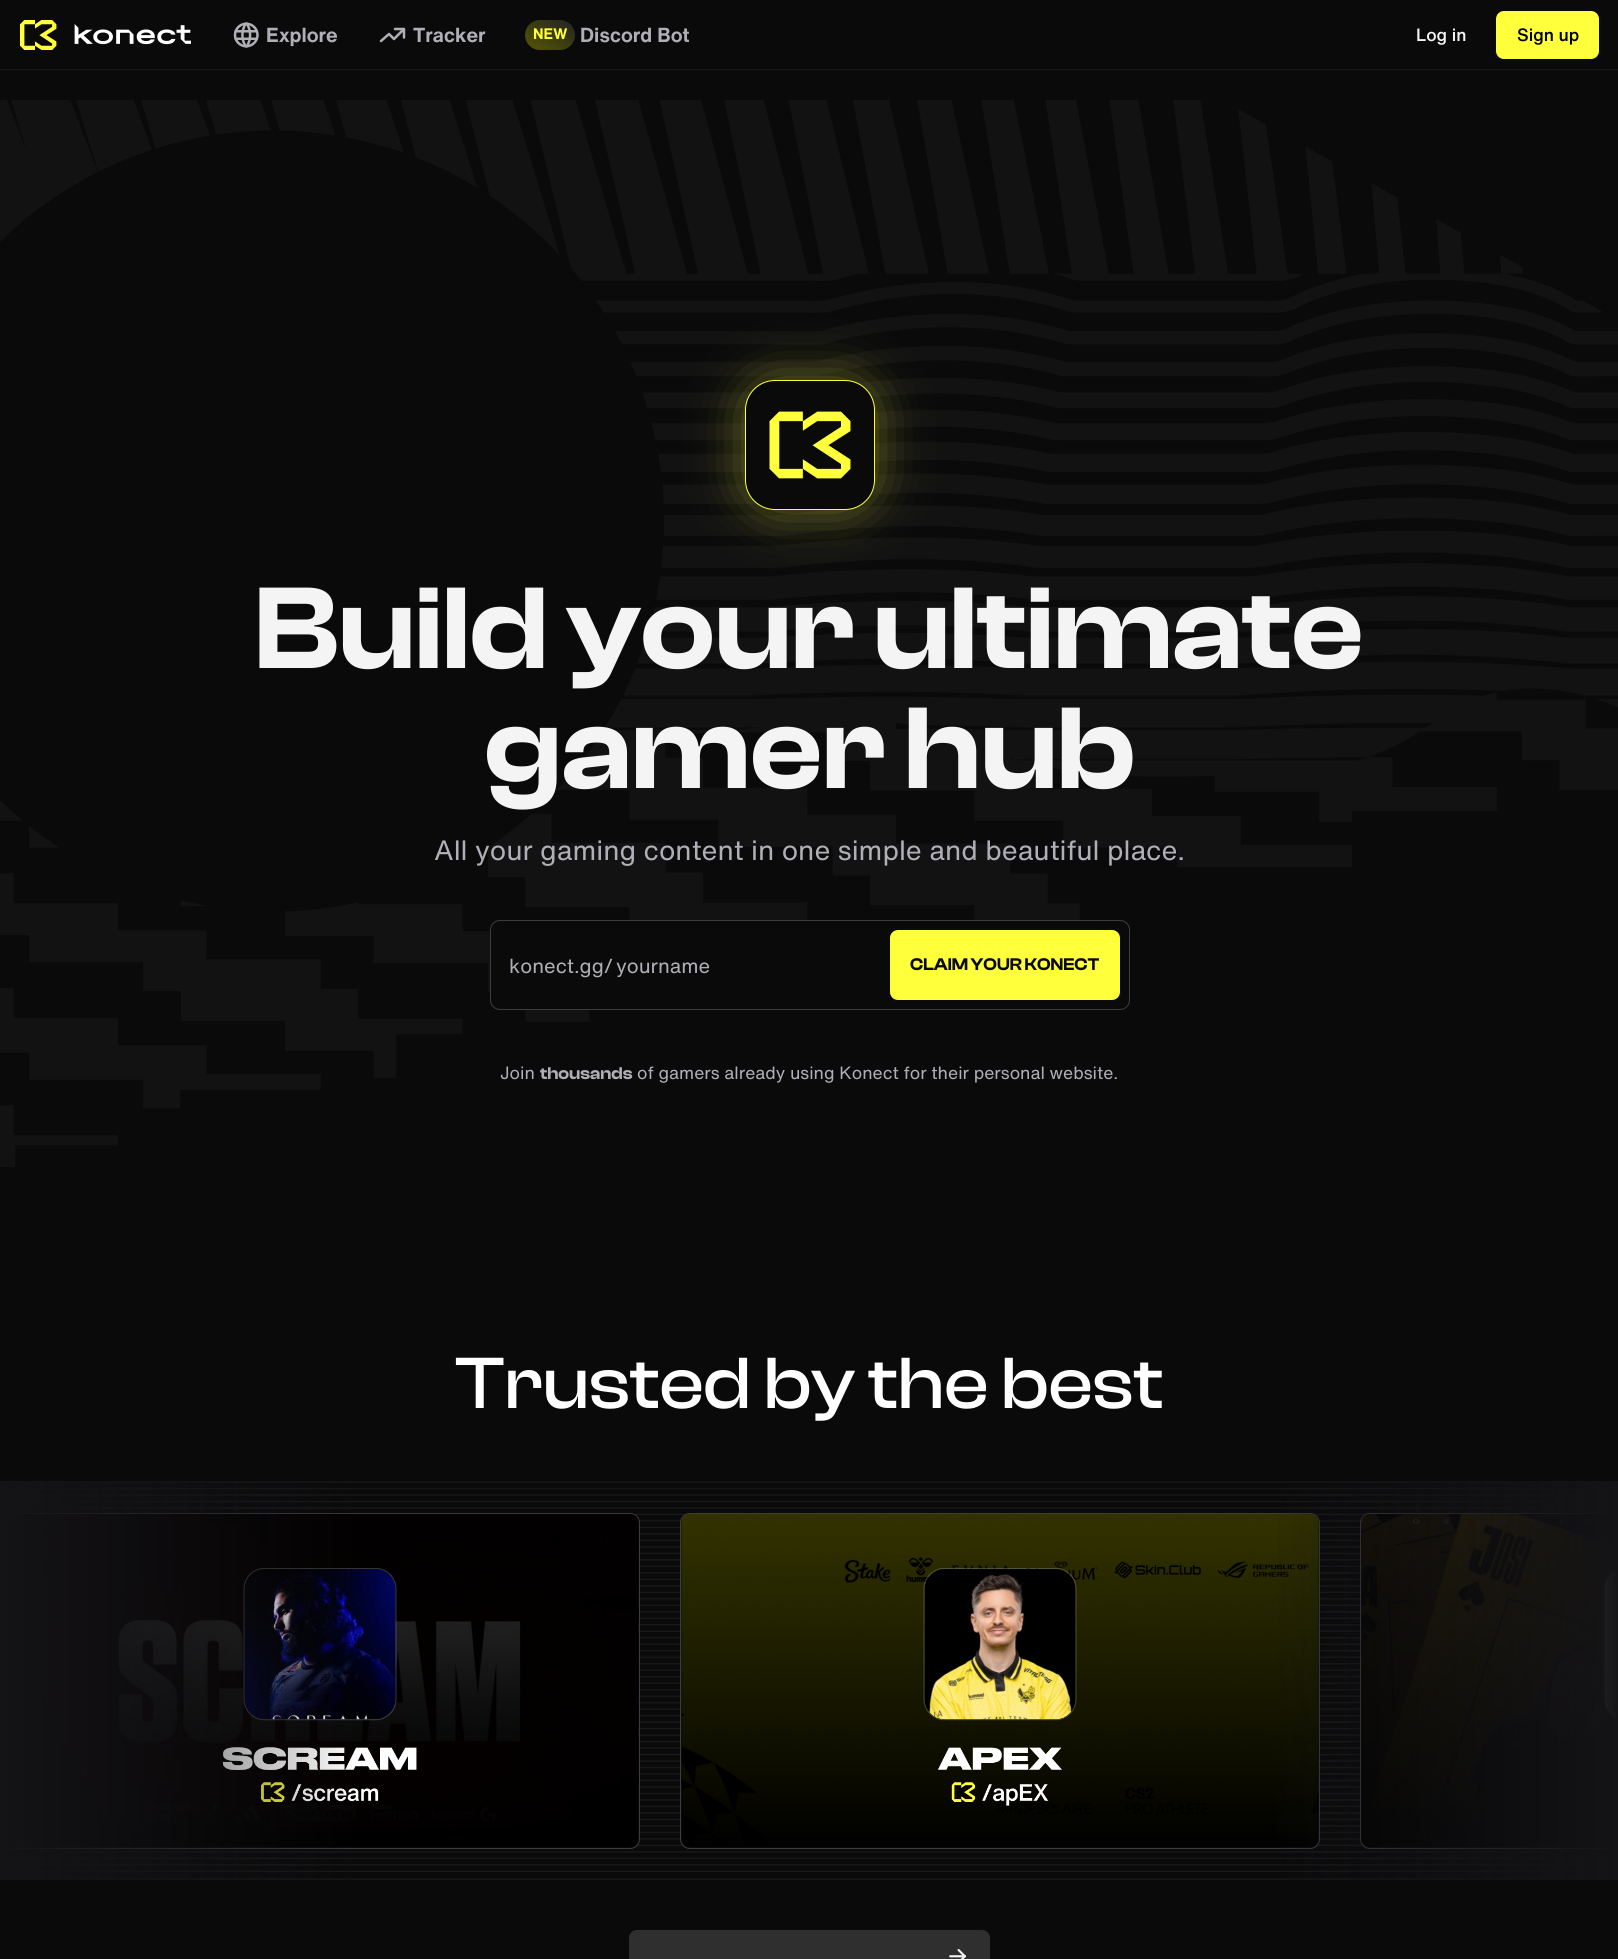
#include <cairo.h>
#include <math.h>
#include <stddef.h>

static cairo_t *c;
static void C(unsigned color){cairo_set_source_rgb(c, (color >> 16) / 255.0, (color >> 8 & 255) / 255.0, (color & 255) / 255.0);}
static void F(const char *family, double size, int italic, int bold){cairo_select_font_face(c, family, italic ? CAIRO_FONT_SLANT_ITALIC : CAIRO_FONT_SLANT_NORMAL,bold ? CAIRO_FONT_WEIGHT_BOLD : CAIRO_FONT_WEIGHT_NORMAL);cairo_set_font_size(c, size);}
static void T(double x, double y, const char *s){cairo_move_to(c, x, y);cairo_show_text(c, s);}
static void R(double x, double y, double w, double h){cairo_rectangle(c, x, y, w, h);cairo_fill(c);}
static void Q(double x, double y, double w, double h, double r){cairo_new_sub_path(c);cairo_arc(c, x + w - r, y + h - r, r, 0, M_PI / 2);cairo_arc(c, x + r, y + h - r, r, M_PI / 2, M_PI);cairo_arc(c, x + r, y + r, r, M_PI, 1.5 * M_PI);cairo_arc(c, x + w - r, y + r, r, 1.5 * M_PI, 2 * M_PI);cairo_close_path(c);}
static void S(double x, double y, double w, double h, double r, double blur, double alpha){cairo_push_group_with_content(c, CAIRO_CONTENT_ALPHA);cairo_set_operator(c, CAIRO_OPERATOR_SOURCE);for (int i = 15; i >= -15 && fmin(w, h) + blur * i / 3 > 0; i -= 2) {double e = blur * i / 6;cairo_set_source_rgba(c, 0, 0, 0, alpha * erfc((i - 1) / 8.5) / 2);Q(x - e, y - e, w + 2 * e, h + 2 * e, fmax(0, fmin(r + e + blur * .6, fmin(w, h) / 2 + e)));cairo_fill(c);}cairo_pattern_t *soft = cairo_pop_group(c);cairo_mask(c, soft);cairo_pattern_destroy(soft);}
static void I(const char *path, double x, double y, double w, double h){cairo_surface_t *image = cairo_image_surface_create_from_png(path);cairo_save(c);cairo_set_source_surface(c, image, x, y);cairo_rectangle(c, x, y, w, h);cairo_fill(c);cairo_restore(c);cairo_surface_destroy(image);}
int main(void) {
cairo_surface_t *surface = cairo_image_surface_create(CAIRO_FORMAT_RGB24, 1618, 1959);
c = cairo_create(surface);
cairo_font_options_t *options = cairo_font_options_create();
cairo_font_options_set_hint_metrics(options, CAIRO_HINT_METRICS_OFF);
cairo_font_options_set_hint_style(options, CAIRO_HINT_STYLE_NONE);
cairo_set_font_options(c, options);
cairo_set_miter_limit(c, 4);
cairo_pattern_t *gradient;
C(0x0a0a0b);
cairo_paint(c);
C(0x161617);
R(0,69,1618,1);
I("1.png",20,20,171,30);
I("2.png",233,22,26,26);
F("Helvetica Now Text",20,0,1);
C(0xb1afb6);
T(266,42,"Explore");
cairo_new_path(c);
cairo_move_to(c,381,41);
cairo_line_to(c,389,34);
cairo_line_to(c,394,39);
cairo_line_to(c,404,29);
cairo_move_to(c,395,29);
cairo_line_to(c,404,29);
cairo_line_to(c,404,37.5);
cairo_set_line_width(c,2.5);
cairo_set_line_cap(c,CAIRO_LINE_CAP_ROUND);
cairo_set_line_join(c,CAIRO_LINE_JOIN_ROUND);
cairo_stroke(c);
T(413,42,"Tracker");
gradient = cairo_pattern_create_linear(537,57,563,13);
cairo_pattern_add_color_stop_rgba(gradient,0,0.341,0.341,0,1);
cairo_pattern_add_color_stop_rgba(gradient,1,0.137,0.133,0.145,1);
cairo_set_source(c,gradient);
cairo_pattern_destroy(gradient);
Q(525,20,50,30,15);
cairo_fill(c);
F("Helvetica Now Text",15,0,1);
C(0xffff3c);
T(533,39,"NEW");
F("Helvetica Now Text",20,0,1);
C(0xb1afb6);
T(580,42,"Discord Bot");
F("Helvetica Now Text Medium",17.5,0,0);
C(0xf4f4f5);
T(1416,41,"Log in");
C(0xffff3c);
Q(1496,11,103,48,8);
cairo_fill(c);
C(0x000000);
T(1517,41,"Sign up");
I("3.png",0,100,1618,1067);
C(0xffff3c);
S(745,380,130,130,30,25,.4);
C(0x0a0a0b);
Q(745.5,380.5,129,129,29.5);
cairo_fill_preserve(c);
C(0xffff3c);
cairo_set_line_width(c,1);
cairo_set_line_cap(c,CAIRO_LINE_CAP_BUTT);
cairo_set_line_join(c,CAIRO_LINE_JOIN_MITER);
cairo_stroke(c);
I("4.png",769,411,82,68);
F("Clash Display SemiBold",120,0,0);
C(0xf4f4f5);
T(255,668,"Build your ultimate");
T(484,788,"gamer hub");
F("Helvetica Now Text",27.5,0,0);
C(0xb1afb6);
T(434,860,"All your gaming content in one simple and beautiful place.");
C(0x0a0a0b);
Q(490.5,920.5,639,89,9.5);
cairo_fill_preserve(c);
C(0x3e3c43);
cairo_stroke(c);
F("Helvetica Now Text",20,0,0);
C(0xb1afb6);
T(509,973,"konect.gg/");
T(616,973,"yourname");
C(0xffff3c);
Q(890,930,230,70,8);
cairo_fill(c);
F("Clash Display SemiBold",17.5,0,0);
C(0x0a0a0b);
T(910,970,"CLAIM YOUR KONECT");
F("Helvetica Now Text",17.5,0,0);
C(0xb1afb6);
T(500,1079,"Join");
F("Clash Display SemiBold",17.5,0,0);
T(540,1079,"thousands");
F("Helvetica Now Text",17.5,0,0);
T(637,1079,"of gamers already using Konect for their personal website.");
F("Clash Display Medium",75,0,0);
C(0xffffff);
T(455,1408,"Trusted by the best");
I("5.png",12,1481,1572,399);
Q(.5,1513.5,639,335,9.5);
C(0x3e3c43);
cairo_stroke(c);
I("6.png",2,1513,637,334);
gradient = cairo_pattern_create_linear(0,1681,360,1681);
cairo_pattern_add_color_stop_rgba(gradient,0,0.078,0.075,0.086,1);
cairo_pattern_add_color_stop_rgba(gradient,1,0.078,0.075,0.086,0);
cairo_set_source(c,gradient);
cairo_pattern_destroy(gradient);
R(0,1481,352,399);
Q(680.5,1513.5,639,335,9.5);
C(0x3e3c43);
cairo_stroke(c);
I("7.png",681,1513,638,334);
Q(1360.5,1513.5,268,335,9.5);
cairo_stroke(c);
I("8.png",1361,1513,256,334);
gradient = cairo_pattern_create_linear(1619,1681,1259,1681);
cairo_pattern_add_color_stop_rgba(gradient,0,0.078,0.075,0.086,1);
cairo_pattern_add_color_stop_rgba(gradient,1,0.078,0.075,0.086,0);
cairo_set_source(c,gradient);
cairo_pattern_destroy(gradient);
R(1278,1481,340,399);
C(0x2f2f30);
Q(629,1930,361,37,8);
cairo_fill(c);
I("9.png",949,1949,17,10);
cairo_surface_write_to_png(surface, "o.png");
cairo_font_options_destroy(options);
cairo_destroy(c);
cairo_surface_destroy(surface);
return 0;
}
